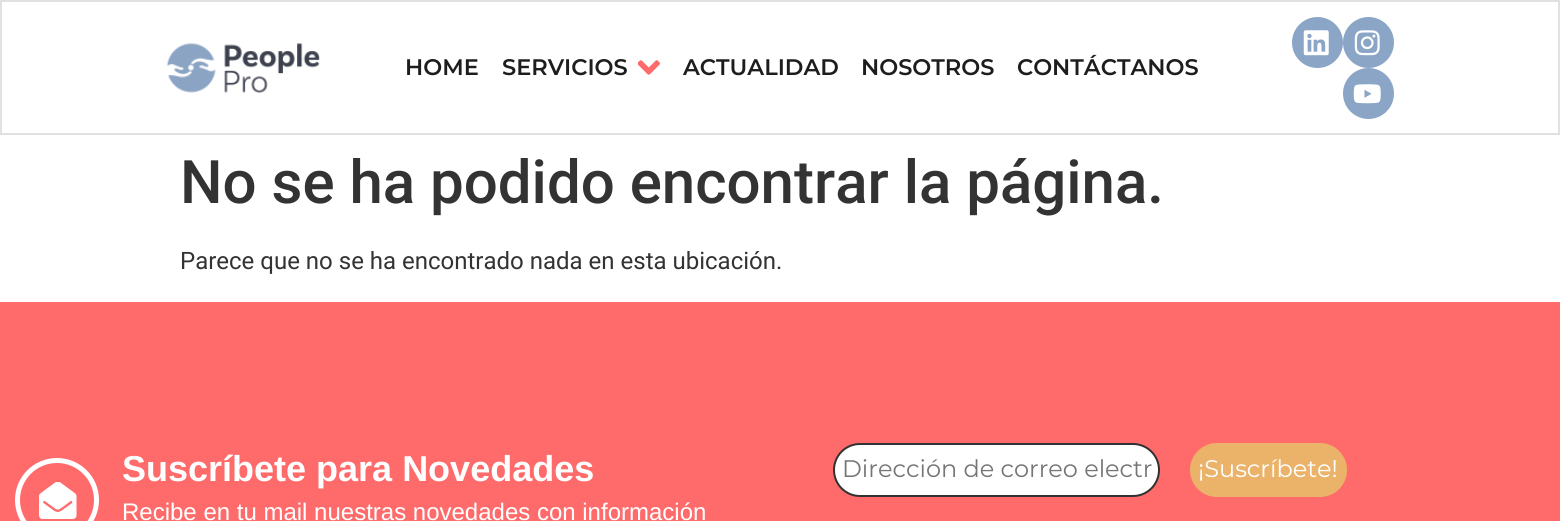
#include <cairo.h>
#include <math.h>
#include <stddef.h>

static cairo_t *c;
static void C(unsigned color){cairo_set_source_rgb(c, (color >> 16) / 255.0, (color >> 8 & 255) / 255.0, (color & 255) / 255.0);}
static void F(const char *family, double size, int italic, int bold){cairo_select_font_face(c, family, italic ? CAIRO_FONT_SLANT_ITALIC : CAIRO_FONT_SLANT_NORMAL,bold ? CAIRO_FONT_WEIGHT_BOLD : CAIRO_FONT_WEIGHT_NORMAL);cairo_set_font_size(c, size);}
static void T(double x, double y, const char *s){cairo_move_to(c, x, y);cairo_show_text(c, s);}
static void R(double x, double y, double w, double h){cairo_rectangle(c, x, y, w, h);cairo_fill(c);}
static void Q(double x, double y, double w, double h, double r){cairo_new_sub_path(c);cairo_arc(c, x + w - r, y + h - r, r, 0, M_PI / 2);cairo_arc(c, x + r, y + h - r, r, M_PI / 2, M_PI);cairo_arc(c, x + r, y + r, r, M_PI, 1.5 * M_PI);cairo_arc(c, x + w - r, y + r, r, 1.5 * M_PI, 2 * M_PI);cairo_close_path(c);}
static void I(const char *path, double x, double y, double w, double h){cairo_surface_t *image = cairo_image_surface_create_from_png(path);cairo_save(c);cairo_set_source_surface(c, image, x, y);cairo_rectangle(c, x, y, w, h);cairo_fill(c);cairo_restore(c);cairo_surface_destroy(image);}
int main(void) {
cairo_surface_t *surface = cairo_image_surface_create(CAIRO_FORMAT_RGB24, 1560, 521);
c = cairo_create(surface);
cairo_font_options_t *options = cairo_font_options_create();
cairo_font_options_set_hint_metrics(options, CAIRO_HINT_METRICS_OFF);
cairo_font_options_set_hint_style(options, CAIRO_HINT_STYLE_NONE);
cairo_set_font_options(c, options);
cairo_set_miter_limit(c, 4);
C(0xffffff);
cairo_paint(c);
cairo_rectangle(c,1,1,1558,133);
C(0xe1e1e1);
cairo_stroke(c);
I("1.png",166,43,154,50);
F("Montserrat SemiBold",22.5,0,0);
C(0x1d1d1d);
T(405,75,"HOME");
T(502,75,"SERVICIOS");
I("2.png",638,60,22,15);
T(683,75,"ACTUALIDAD");
T(861,75,"NOSOTROS");
T(1017,75,"CONTÁCTANOS");
C(0x8ba5c6);
cairo_new_path(c);
cairo_arc(c,1317.5,42.5,25.5,0,2 * M_PI);
cairo_fill(c);
I("3.png",1303,30,26,26);
cairo_arc(c,1368.5,42.5,25.5,0,2 * M_PI);
cairo_fill(c);
I("4.png",1354,30,26,26);
cairo_arc(c,1368.5,93.5,25.5,0,2 * M_PI);
cairo_fill(c);
I("5.png",1353,84,28,20);
F("Roboto Medium",60,0,0);
C(0x333333);
T(180,203,"No se ha podido encontrar la página.");
F("Roboto",24,0,0);
T(180,269,"Parece que no se ha encontrado nada en esta ubicación.");
C(0xff6b6b);
R(0,302,1560,219);
cairo_new_path(c);
cairo_arc(c,57,500,39.5,0,2 * M_PI);
C(0xffffff);
cairo_set_line_width(c,5);
cairo_stroke(c);
I("6.png",39,482,38,37);
F("Liberation Sans",36,0,1);
T(122,481,"Suscríbete para Novedades");
F("Liberation Sans",24,0,0);
T(122,520,"Recibe en tu mail nuestras novedades con información");
Q(834,444,325,52,26);
cairo_fill_preserve(c);
C(0x313131);
cairo_set_line_width(c,2);
cairo_stroke(c);
F("Montserrat",24,0,0);
C(0x757575);
T(842,477,"Dirección de correo electr");
C(0xebb369);
Q(1190,443,157,54,27);
cairo_fill(c);
C(0xffffff);
T(1198,477,"¡Suscríbete!");
cairo_surface_write_to_png(surface, "o.png");
cairo_font_options_destroy(options);
cairo_destroy(c);
cairo_surface_destroy(surface);
return 0;
}
